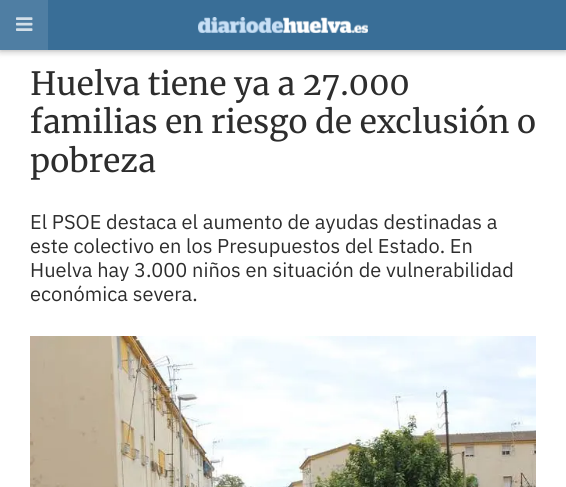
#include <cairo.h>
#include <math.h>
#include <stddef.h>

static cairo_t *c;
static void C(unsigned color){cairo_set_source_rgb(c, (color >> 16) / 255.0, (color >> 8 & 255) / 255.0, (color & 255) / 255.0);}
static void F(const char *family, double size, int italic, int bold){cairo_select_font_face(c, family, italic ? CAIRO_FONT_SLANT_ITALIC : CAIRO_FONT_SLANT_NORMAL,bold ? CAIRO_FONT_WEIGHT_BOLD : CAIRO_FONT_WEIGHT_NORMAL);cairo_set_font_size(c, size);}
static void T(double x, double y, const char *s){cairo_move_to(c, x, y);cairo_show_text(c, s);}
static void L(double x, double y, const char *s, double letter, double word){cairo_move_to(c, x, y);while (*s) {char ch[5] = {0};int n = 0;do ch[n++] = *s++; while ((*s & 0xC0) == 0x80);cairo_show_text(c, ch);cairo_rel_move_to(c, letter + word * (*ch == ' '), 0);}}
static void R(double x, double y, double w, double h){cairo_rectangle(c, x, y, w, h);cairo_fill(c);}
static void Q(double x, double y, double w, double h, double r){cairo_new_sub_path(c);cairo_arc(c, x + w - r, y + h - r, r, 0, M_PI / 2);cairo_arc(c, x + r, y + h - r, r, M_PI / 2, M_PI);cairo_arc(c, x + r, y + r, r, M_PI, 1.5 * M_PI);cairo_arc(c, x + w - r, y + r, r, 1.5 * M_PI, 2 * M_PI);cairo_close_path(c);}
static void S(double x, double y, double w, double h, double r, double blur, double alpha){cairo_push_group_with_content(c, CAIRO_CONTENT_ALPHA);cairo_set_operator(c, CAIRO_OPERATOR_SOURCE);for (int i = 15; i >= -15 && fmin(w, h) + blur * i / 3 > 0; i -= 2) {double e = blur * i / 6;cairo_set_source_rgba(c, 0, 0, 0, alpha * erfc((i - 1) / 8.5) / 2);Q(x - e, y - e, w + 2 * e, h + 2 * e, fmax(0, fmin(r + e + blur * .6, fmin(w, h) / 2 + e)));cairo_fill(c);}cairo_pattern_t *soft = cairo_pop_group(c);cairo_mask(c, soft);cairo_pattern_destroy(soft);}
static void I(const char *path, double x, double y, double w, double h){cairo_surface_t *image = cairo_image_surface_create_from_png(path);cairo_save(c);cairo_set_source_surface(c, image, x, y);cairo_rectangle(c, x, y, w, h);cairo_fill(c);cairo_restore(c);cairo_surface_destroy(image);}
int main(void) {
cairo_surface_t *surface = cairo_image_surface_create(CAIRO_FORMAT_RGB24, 566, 487);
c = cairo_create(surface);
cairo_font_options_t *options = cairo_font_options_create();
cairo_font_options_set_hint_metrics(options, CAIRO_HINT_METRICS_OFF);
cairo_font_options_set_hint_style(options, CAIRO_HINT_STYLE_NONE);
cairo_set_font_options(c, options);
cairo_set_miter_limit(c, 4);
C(0xffffff);
cairo_paint(c);
C(0x000000);
S(0,0,566,50,0,4,.4);
C(0x396e97);
R(48,0,518,50);
C(0x4f7ea3);
R(0,0,48,50);
I("1.png",16,17,17,14);
I("2.png",198,17,170,16);
F("Merriweather",32,0,0);
C(0x2d2d2d);
L(30,95,"Huelva tiene ya a 27.000",-.15,0);
L(30,133,"familias en riesgo de exclusión o",-.15,0);
L(30,172,"pobreza",-.15,0);
F("IBM Plex Sans",20,0,0);
T(30,229,"El PSOE destaca el aumento de ayudas destinadas a");
T(30,253,"este colectivo en los Presupuestos del Estado. En");
T(30,277,"Huelva hay 3.000 niños en situación de vulnerabilidad");
T(30,301,"económica severa.");
I("3.png",30,336,506,151);
cairo_surface_write_to_png(surface, "o.png");
cairo_font_options_destroy(options);
cairo_destroy(c);
cairo_surface_destroy(surface);
return 0;
}
